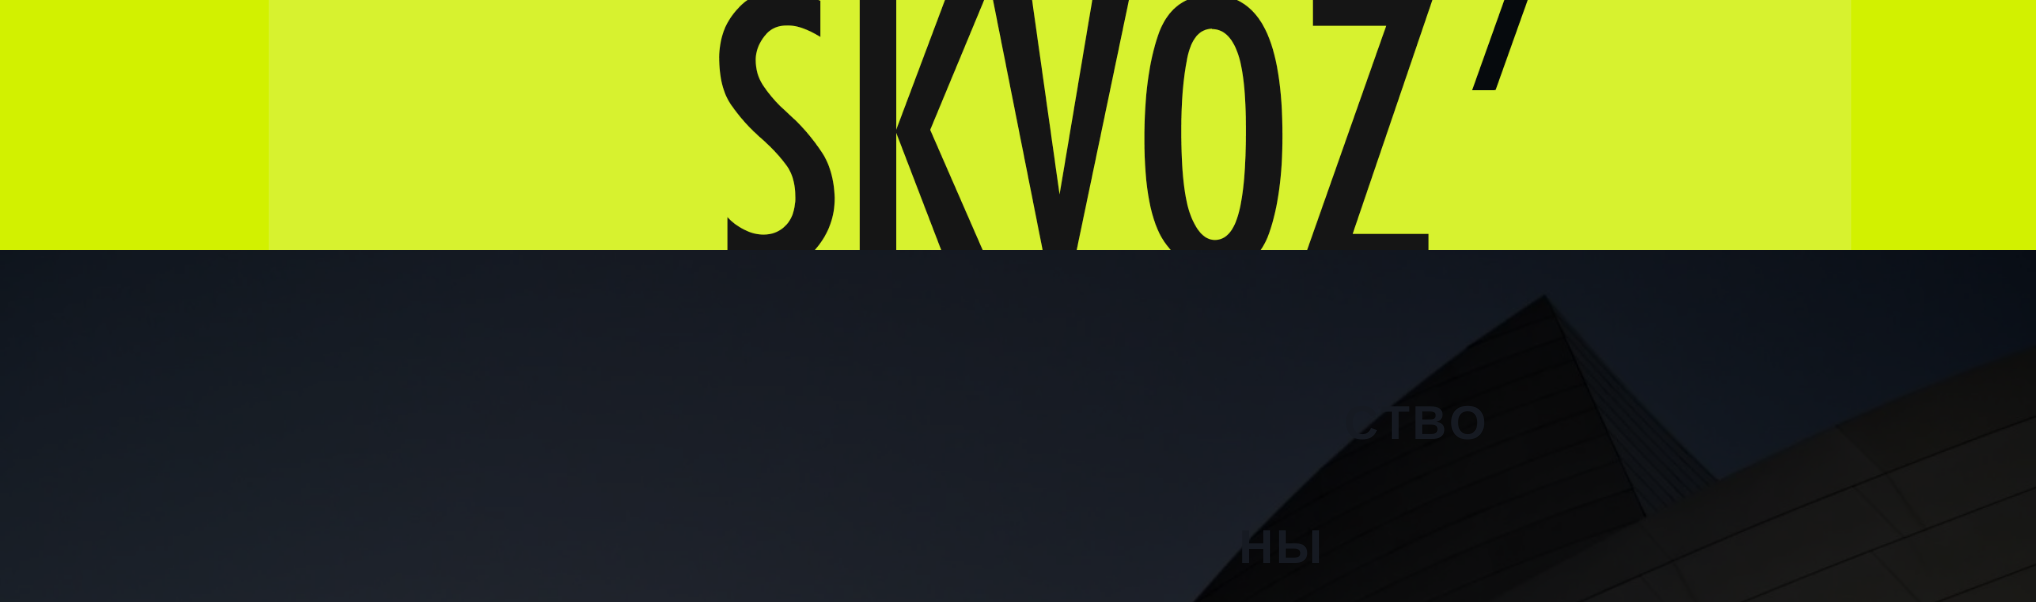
#include <cairo.h>
#include <math.h>
#include <stddef.h>

static cairo_t *c;
static void C(unsigned color){cairo_set_source_rgb(c, (color >> 16) / 255.0, (color >> 8 & 255) / 255.0, (color & 255) / 255.0);}
static void F(const char *family, double size, int italic, int bold){cairo_select_font_face(c, family, italic ? CAIRO_FONT_SLANT_ITALIC : CAIRO_FONT_SLANT_NORMAL,bold ? CAIRO_FONT_WEIGHT_BOLD : CAIRO_FONT_WEIGHT_NORMAL);cairo_set_font_size(c, size);}
static void L(double x, double y, const char *s, double letter, double word){cairo_move_to(c, x, y);while (*s) {char ch[5] = {0};int n = 0;do ch[n++] = *s++; while ((*s & 0xC0) == 0x80);cairo_show_text(c, ch);cairo_rel_move_to(c, letter + word * (*ch == ' '), 0);}}
static void I(const char *path, double x, double y, double w, double h){cairo_surface_t *image = cairo_image_surface_create_from_png(path);cairo_save(c);cairo_set_source_surface(c, image, x, y);cairo_rectangle(c, x, y, w, h);cairo_fill(c);cairo_restore(c);cairo_surface_destroy(image);}
int main(void) {
cairo_surface_t *surface = cairo_image_surface_create(CAIRO_FORMAT_RGB24, 2036, 602);
c = cairo_create(surface);
cairo_font_options_t *options = cairo_font_options_create();
cairo_font_options_set_hint_metrics(options, CAIRO_HINT_METRICS_OFF);
cairo_font_options_set_hint_style(options, CAIRO_HINT_STYLE_NONE);
cairo_set_font_options(c, options);
cairo_set_miter_limit(c, 4);
C(0xd2f100);
cairo_paint(c);
I("1.png",268,0,1584,250);
I("2.png",0,250,2036,352);
F("Liberation Sans",47.5,0,1);
C(0x161a22);
L(1344,439,"СТВО",2.5,0);
L(1239,563,"НЫ",2.5,0);
cairo_surface_write_to_png(surface, "o.png");
cairo_font_options_destroy(options);
cairo_destroy(c);
cairo_surface_destroy(surface);
return 0;
}
